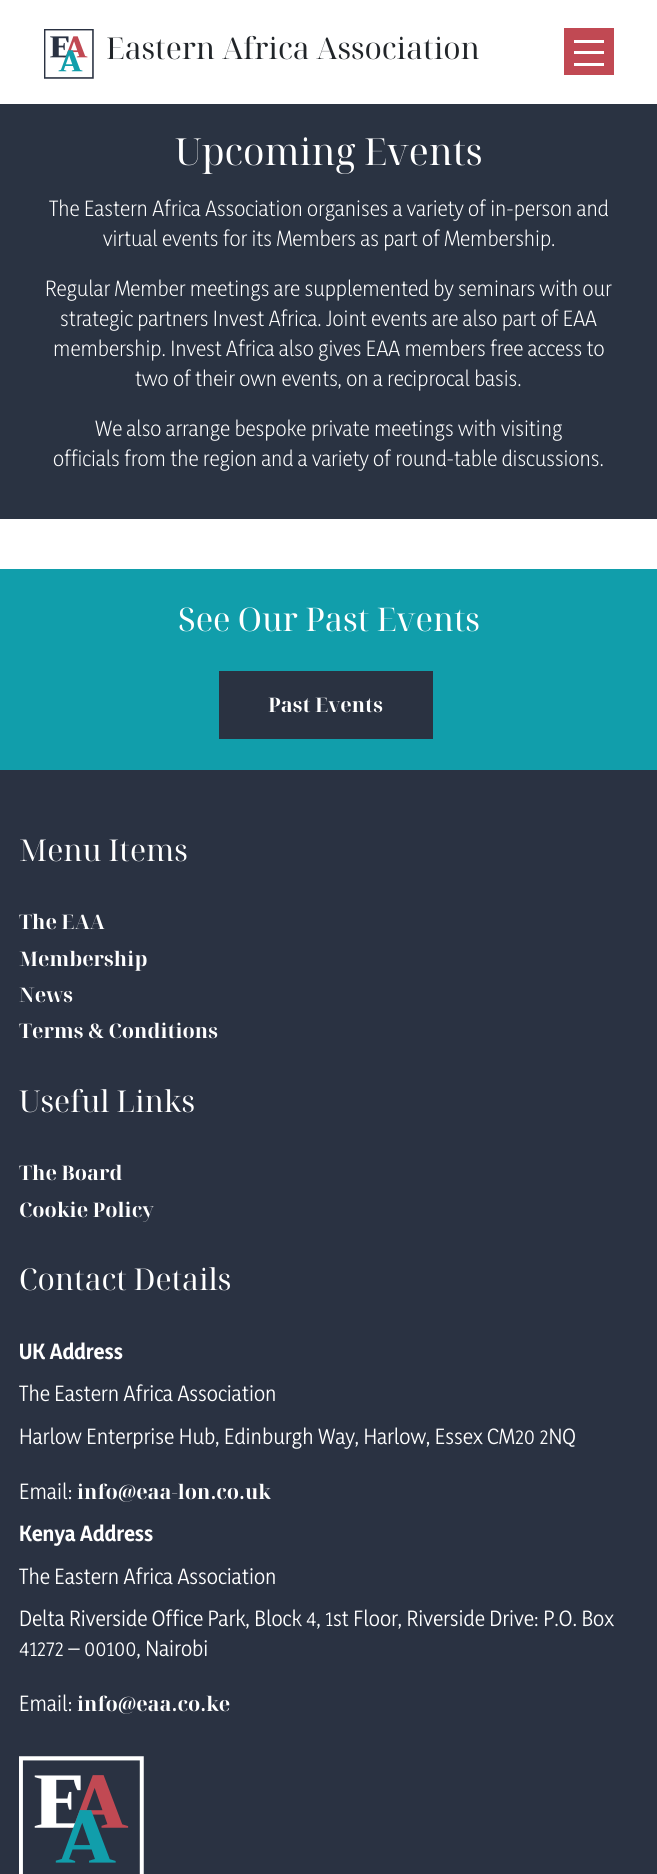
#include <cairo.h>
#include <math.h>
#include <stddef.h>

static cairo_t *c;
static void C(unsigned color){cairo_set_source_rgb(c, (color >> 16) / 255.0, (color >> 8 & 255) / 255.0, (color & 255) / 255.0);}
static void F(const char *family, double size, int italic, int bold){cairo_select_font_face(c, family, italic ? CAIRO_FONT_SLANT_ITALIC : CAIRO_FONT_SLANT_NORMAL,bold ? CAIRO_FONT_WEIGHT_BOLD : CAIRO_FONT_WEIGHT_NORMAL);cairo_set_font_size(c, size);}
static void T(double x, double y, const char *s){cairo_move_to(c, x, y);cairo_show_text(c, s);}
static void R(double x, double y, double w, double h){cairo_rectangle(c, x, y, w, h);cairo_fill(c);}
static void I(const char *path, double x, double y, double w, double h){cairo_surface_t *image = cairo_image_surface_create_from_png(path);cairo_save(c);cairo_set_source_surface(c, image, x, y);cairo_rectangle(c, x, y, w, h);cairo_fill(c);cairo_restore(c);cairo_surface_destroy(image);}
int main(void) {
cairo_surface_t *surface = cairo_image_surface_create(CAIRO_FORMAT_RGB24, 657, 1874);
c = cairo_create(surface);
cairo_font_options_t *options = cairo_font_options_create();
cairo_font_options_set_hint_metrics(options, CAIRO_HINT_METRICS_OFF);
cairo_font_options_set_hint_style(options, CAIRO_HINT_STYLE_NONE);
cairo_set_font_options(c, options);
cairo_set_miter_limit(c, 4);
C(0xffffff);
cairo_paint(c);
I("1.png",44,29,50,50);
F("Noto Serif Display",30,0,0);
C(0x212529);
T(106,59,"Eastern Africa Association");
C(0xc14953);
R(564,28,50,47);
C(0xffffff);
R(574,51,30,3);
R(574,40,30,3);
R(574,63,30,3);
C(0x2a3342);
R(0,104,657,415);
F("Noto Serif Display",37.25,0,0);
C(0xffffff);
T(175,165,"Upcoming Events");
F("Yaldevi ExtraLight",20,0,0);
T(49,216,"The Eastern Africa Association organises a variety of in-person and");
T(103,246,"virtual events for its Members as part of Membership.");
T(45,296,"Regular Member meetings are supplemented by seminars with our");
T(60,326,"strategic partners Invest Africa. Joint events are also part of EAA");
T(53,356,"membership. Invest Africa also gives EAA members free access to");
T(135,386,"two of their own events, on a reciprocal basis.");
T(95,436,"We also arrange bespoke private meetings with visiting");
T(53,466,"officials from the region and a variety of round-table discussions.");
C(0x119eab);
R(0,569,657,201);
F("Noto Serif Display",32.5,0,0);
C(0xffffff);
T(178,631,"See Our Past Events");
C(0x2a3241);
R(219,671,214,68);
F("Noto Serif Display",20,0,1);
C(0xffffff);
T(268,712,"Past Events");
C(0x2a3242);
R(0,770,657,1104);
F("Noto Serif Display",30,0,0);
C(0xffffff);
T(19,861,"Menu Items");
F("Noto Serif Display",20,0,1);
T(19,929,"The EAA");
T(19,966,"Membership");
T(19,1002,"News");
T(19,1038,"Terms & Conditions");
F("Noto Serif Display",30,0,0);
T(19,1112,"Useful Links");
F("Noto Serif Display",20,0,1);
T(19,1180,"The Board");
T(19,1217,"Cookie Policy");
F("Noto Serif Display",30,0,0);
T(19,1290,"Contact Details");
F("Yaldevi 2 ExtraLight",20,0,0);
T(19,1359,"UK Address");
F("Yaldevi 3 ExtraLight",20,0,0);
T(19,1401,"The Eastern Africa Association");
T(19,1444,"Harlow Enterprise Hub, Edinburgh Way, Harlow, Essex CM20 2NQ");
T(19,1499,"Email:");
F("Noto Serif Display",20,0,1);
T(77,1499,"info@eaa-lon.co.uk");
F("Yaldevi 2 ExtraLight",20,0,0);
T(19,1541,"Kenya Address");
F("Yaldevi 3 ExtraLight",20,0,0);
T(19,1584,"The Eastern Africa Association");
T(19,1626,"Delta Riverside Office Park, Block 4, 1st Floor, Riverside Drive: P.O. Box");
T(19,1656,"41272 – 00100, Nairobi");
T(19,1711,"Email:");
F("Noto Serif Display",20,0,1);
T(77,1711,"info@eaa.co.ke");
I("2.png",19,1756,125,118);
cairo_surface_write_to_png(surface, "o.png");
cairo_font_options_destroy(options);
cairo_destroy(c);
cairo_surface_destroy(surface);
return 0;
}
